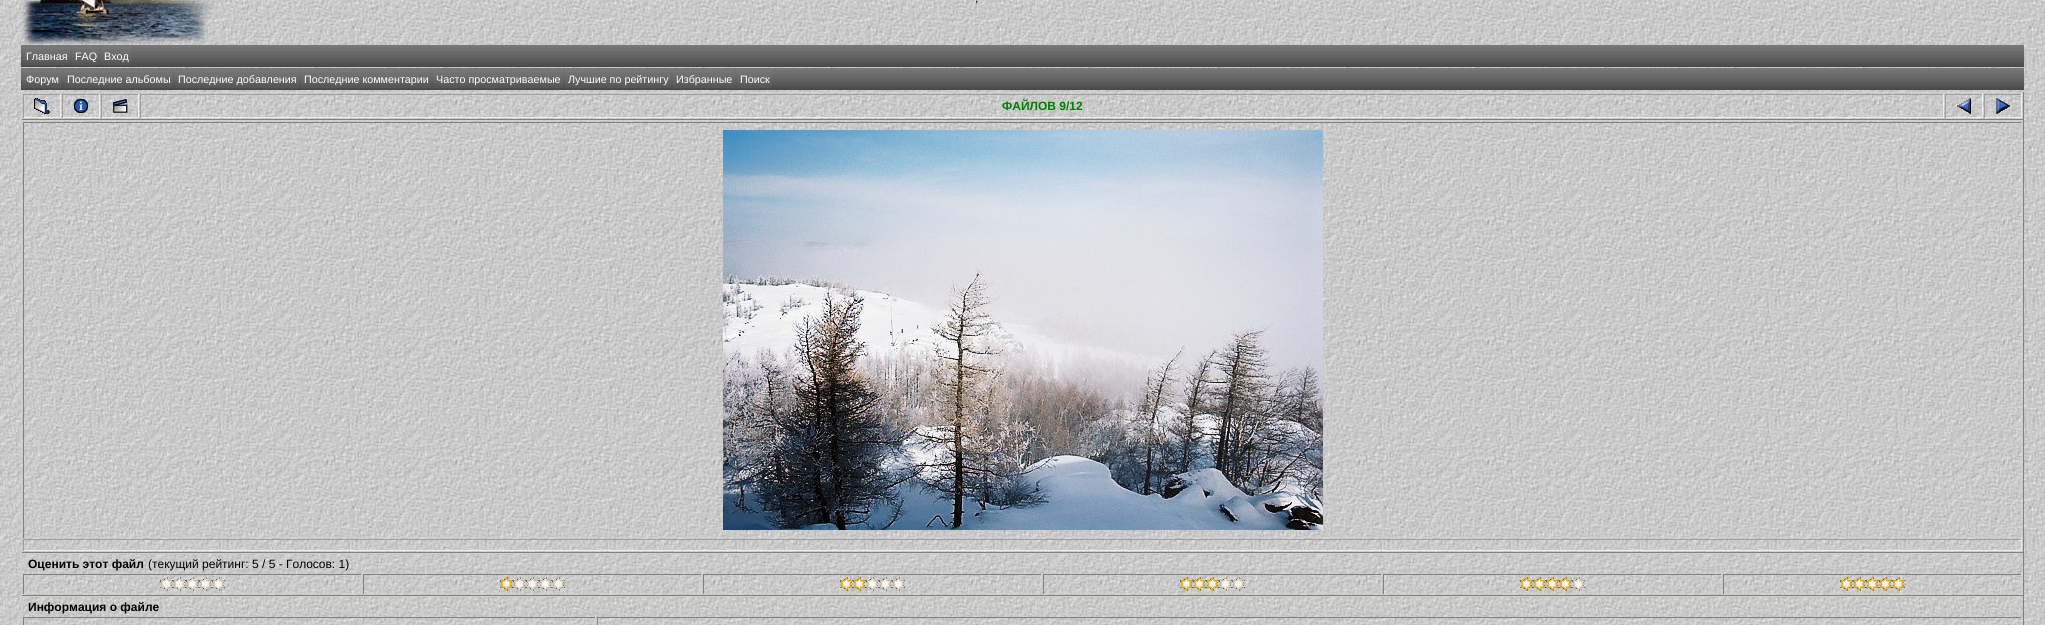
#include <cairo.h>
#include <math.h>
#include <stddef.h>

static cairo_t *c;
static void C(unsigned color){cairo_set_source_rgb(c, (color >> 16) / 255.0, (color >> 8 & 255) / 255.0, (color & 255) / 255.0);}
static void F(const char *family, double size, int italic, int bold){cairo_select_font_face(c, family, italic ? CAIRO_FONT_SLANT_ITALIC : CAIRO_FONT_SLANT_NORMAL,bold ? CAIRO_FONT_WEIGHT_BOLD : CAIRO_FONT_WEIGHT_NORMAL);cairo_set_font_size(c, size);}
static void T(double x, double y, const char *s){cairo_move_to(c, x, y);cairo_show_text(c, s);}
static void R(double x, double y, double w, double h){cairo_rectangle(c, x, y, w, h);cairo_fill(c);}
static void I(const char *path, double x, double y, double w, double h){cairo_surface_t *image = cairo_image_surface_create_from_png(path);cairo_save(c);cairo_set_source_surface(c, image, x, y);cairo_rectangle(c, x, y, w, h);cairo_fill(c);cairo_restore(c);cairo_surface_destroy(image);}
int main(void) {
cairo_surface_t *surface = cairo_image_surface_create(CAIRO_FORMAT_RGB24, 2045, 625);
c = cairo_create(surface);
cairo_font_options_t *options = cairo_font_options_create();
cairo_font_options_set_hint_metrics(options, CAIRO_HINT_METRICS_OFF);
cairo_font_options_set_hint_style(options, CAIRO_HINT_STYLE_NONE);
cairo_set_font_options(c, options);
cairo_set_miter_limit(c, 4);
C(0xffffff);
cairo_paint(c);
I("1.png",0,0,2045,625);
I("2.png",22,0,192,44);
F("Liberation Sans",12,0,0);
C(0x000000);
T(975,2,",");
I("3.png",21,45,2003,22);
I("4.png",23,47,47,18);
F("Liberation Sans",10.75,0,0);
C(0xffffff);
T(26,60,"Главная");
I("5.png",72,47,27,18);
T(75,60,"FAQ");
I("6.png",101,47,30,18);
T(104,60,"Вход");
I("3.png",21,68,2003,22);
I("7.png",23,70,39,18);
T(26,83,"Форум");
I("8.png",64,70,109,18);
T(67,83,"Последние альбомы");
I("9.png",175,70,124,18);
T(178,83,"Последние добавления");
I("10.png",301,70,130,18);
T(304,83,"Последние комментарии");
I("11.png",433,70,130,18);
T(436,83,"Часто просматриваемые");
I("12.png",565,70,106,18);
T(568,83,"Лучшие по рейтингу");
I("13.png",673,70,62,18);
T(676,83,"Избранные");
I("14.png",737,70,35,18);
T(740,83,"Поиск");
C(0xd4d0c8);
R(21,92,2003,1);
C(0x808080);
R(2023,92,1,28);
R(21,119,2003,1);
C(0xd4d0c8);
R(21,92,1,28);
C(0x9f9f9f);
R(23,94,38,1);
C(0xeeeeee);
R(60,94,1,24);
R(23,117,38,1);
C(0x9f9f9f);
R(23,94,1,24);
I("15.png",34,98,16,16);
R(62,94,38,1);
C(0xeeeeee);
R(99,94,1,24);
R(62,117,38,1);
C(0x9f9f9f);
R(62,94,1,24);
I("16.png",74,99,14,14);
R(101,94,38,1);
C(0xeeeeee);
R(138,94,1,24);
R(101,117,38,1);
C(0x9f9f9f);
R(101,94,1,24);
I("17.png",113,99,15,14);
R(140,94,1804,1);
C(0xeeeeee);
R(1943,94,1,24);
R(140,117,1804,1);
C(0x9f9f9f);
R(140,94,1,24);
F("Liberation Sans",12,0,1);
C(0x008000);
T(1002,110,"ФАЙЛОВ 9/12");
C(0x9f9f9f);
R(1945,94,38,1);
C(0xeeeeee);
R(1982,94,1,24);
R(1945,117,38,1);
C(0x9f9f9f);
R(1945,94,1,24);
I("18.png",1957,98,14,16);
R(1984,94,38,1);
C(0xeeeeee);
R(2021,94,1,24);
R(1984,117,38,1);
C(0x9f9f9f);
R(1984,94,1,24);
I("19.png",1996,98,14,16);
C(0xd4d0c8);
R(21,120,2003,1);
C(0x808080);
R(2023,120,1,433);
R(21,552,2003,1);
C(0xd4d0c8);
R(21,120,1,433);
C(0x808080);
R(23,122,1999,1);
C(0xd4d0c8);
R(2021,122,1,416);
R(23,537,1999,1);
C(0x808080);
R(23,122,1,416);
I("20.png",723,130,600,400);
C(0x9f9f9f);
R(23,539,1999,1);
C(0xeeeeee);
R(2021,539,1,12);
R(23,550,1999,1);
C(0x9f9f9f);
R(23,539,1,12);
C(0xd4d0c8);
R(21,553,2003,1);
C(0x808080);
R(2023,553,1,43);
R(21,595,2003,1);
C(0xd4d0c8);
R(21,553,1,43);
C(0x000000);
T(28,568,"Оценить этот файл");
F("Liberation Sans",12,0,0);
T(148,568,"(текущий рейтинг: 5 / 5 - Голосов: 1)");
C(0x808080);
R(23,574,339,1);
C(0xd4d0c8);
R(361,574,1,20);
R(23,593,339,1);
C(0x808080);
R(23,574,1,20);
I("21.png",160,577,65,14);
R(363,574,339,1);
C(0xd4d0c8);
R(701,574,1,20);
R(363,593,339,1);
C(0x808080);
R(363,574,1,20);
I("22.png",500,577,65,14);
R(703,574,339,1);
C(0xd4d0c8);
R(1041,574,1,20);
R(703,593,339,1);
C(0x808080);
R(703,574,1,20);
I("23.png",840,577,65,14);
R(1043,574,339,1);
C(0xd4d0c8);
R(1381,574,1,20);
R(1043,593,339,1);
C(0x808080);
R(1043,574,1,20);
I("24.png",1180,577,65,14);
R(1383,574,339,1);
C(0xd4d0c8);
R(1721,574,1,20);
R(1383,593,339,1);
C(0x808080);
R(1383,574,1,20);
I("25.png",1520,577,65,14);
R(1723,574,299,1);
C(0xd4d0c8);
R(2021,574,1,20);
R(1723,593,299,1);
C(0x808080);
R(1723,574,1,20);
I("26.png",1840,577,65,14);
C(0xd4d0c8);
R(21,596,2003,1);
C(0x808080);
R(2023,596,1,29);
C(0xd4d0c8);
R(21,596,1,29);
F("Liberation Sans",12,0,1);
C(0x000000);
T(28,611,"Информация о файле");
C(0x808080);
R(23,617,573,1);
C(0xd4d0c8);
R(595,617,1,8);
C(0x808080);
R(23,617,1,8);
R(597,617,1425,1);
C(0xd4d0c8);
R(2021,617,1,8);
C(0x808080);
R(597,617,1,8);
cairo_surface_write_to_png(surface, "o.png");
cairo_font_options_destroy(options);
cairo_destroy(c);
cairo_surface_destroy(surface);
return 0;
}
